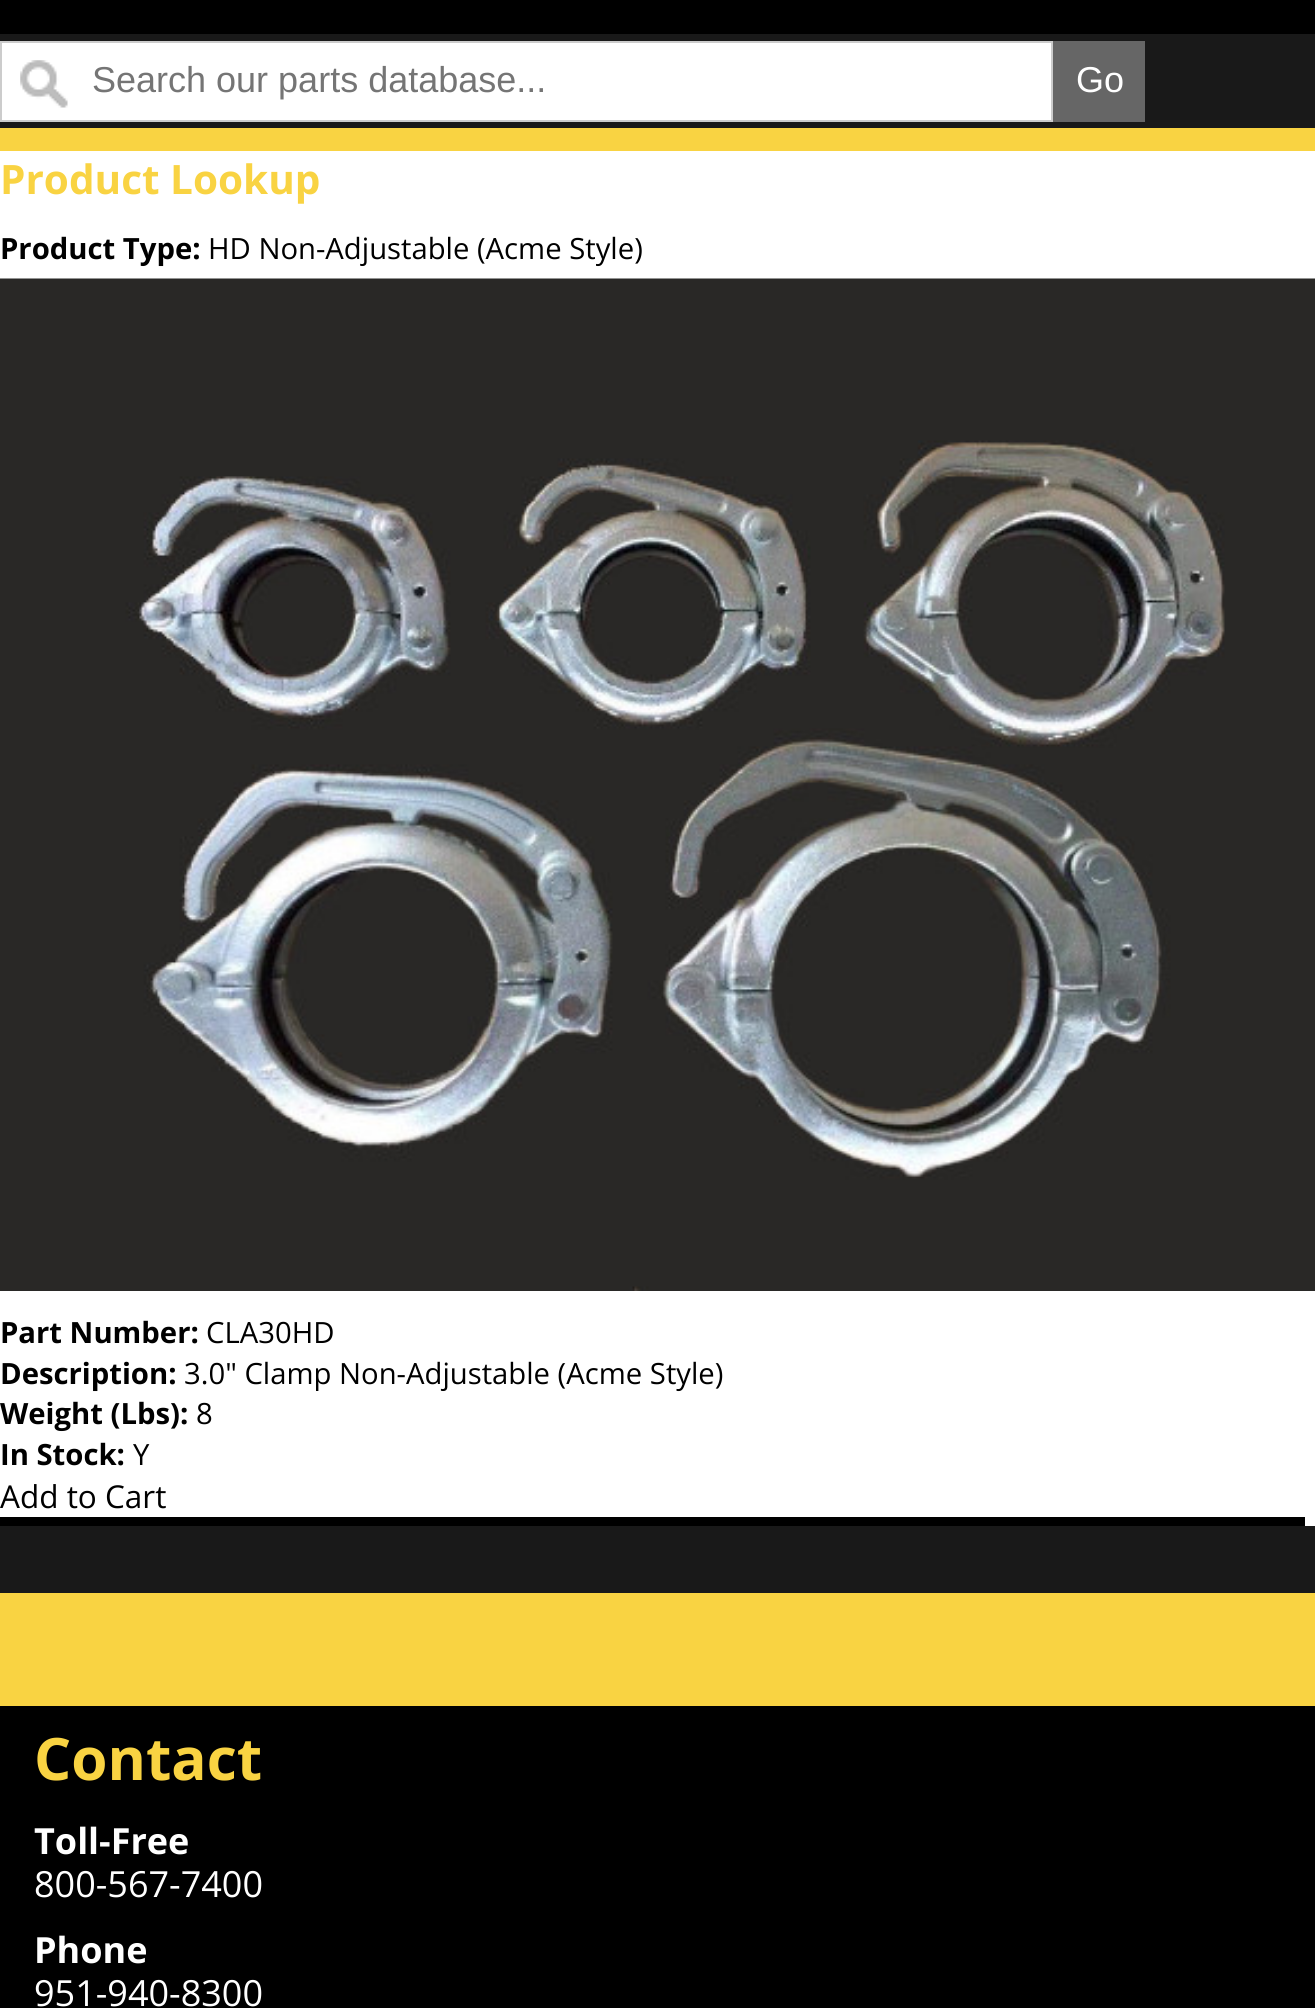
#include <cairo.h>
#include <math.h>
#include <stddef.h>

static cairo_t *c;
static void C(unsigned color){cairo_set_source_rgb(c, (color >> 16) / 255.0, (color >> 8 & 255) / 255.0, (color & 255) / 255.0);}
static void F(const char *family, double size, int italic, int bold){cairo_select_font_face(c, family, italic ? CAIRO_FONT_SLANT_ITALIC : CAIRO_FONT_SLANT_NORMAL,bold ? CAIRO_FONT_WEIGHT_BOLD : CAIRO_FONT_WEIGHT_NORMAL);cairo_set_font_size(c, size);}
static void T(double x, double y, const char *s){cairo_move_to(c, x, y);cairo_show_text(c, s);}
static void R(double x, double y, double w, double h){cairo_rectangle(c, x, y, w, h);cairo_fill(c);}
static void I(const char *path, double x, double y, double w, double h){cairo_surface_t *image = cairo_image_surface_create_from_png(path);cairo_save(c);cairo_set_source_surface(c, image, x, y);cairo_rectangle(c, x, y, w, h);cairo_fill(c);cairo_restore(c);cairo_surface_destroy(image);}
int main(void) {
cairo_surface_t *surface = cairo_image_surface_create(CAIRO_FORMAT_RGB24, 1315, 2008);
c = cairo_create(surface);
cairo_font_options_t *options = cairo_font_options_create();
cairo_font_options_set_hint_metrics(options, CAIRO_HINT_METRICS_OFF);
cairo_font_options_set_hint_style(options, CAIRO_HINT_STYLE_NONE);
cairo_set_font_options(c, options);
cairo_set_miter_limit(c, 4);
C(0x191919);
cairo_paint(c);
C(0x000000);
R(0,0,1315,34);
C(0xffffff);
R(2,43,1049,77);
I("1.png",20,60,48,48);
cairo_rectangle(c,1,42,1051,79);
C(0xcccccc);
cairo_stroke(c);
F("Liberation Sans",36,0,0);
C(0x757575);
T(92,92,"Search our parts database...");
C(0x666666);
R(1053,41,92,81);
C(0xffffff);
T(1076,92,"Go");
C(0xf9d342);
R(0,128,1315,23);
C(0xffffff);
R(0,151,1315,1375);
F("Open Sans",40.5,0,1);
C(0xf9d342);
T(0,194,"Product Lookup");
F("Open Sans",29.25,0,1);
C(0x000000);
T(0,259,"Product Type:");
F("Open Sans",29.25,0,0);
T(208,259,"HD Non-Adjustable (Acme Style)");
I("2.png",0,278,1315,1013);
F("Open Sans",29.25,0,1);
T(0,1343,"Part Number:");
F("Open Sans",29.25,0,0);
T(206,1343,"CLA30HD");
F("Open Sans",29.25,0,1);
T(0,1384,"Description:");
F("Open Sans",29.25,0,0);
T(184,1384,"3.0\" Clamp Non-Adjustable (Acme Style)");
F("Open Sans",29.25,0,1);
T(0,1424,"Weight (Lbs):");
F("Open Sans",29.25,0,0);
T(196,1424,"8");
F("Open Sans",29.25,0,1);
T(0,1465,"In Stock:");
F("Open Sans",29.25,0,0);
T(133,1465,"Y");
R(0,1517,1305,9);
F("Open Sans",31.5,0,0);
T(0,1508,"Add to Cart");
R(0,1706,1315,302);
C(0xf9d342);
R(0,1593,1315,113);
F("Open Sans",58.5,0,1);
T(34,1780,"Contact");
F("Open Sans",36,0,1);
C(0xffffff);
T(34,1854,"Toll-Free");
F("Open Sans",36,0,0);
T(34,1897,"800-567-7400");
F("Open Sans",36,0,1);
T(34,1963,"Phone");
F("Open Sans",36,0,0);
T(34,2006,"951-940-8300");
cairo_surface_write_to_png(surface, "o.png");
cairo_font_options_destroy(options);
cairo_destroy(c);
cairo_surface_destroy(surface);
return 0;
}
